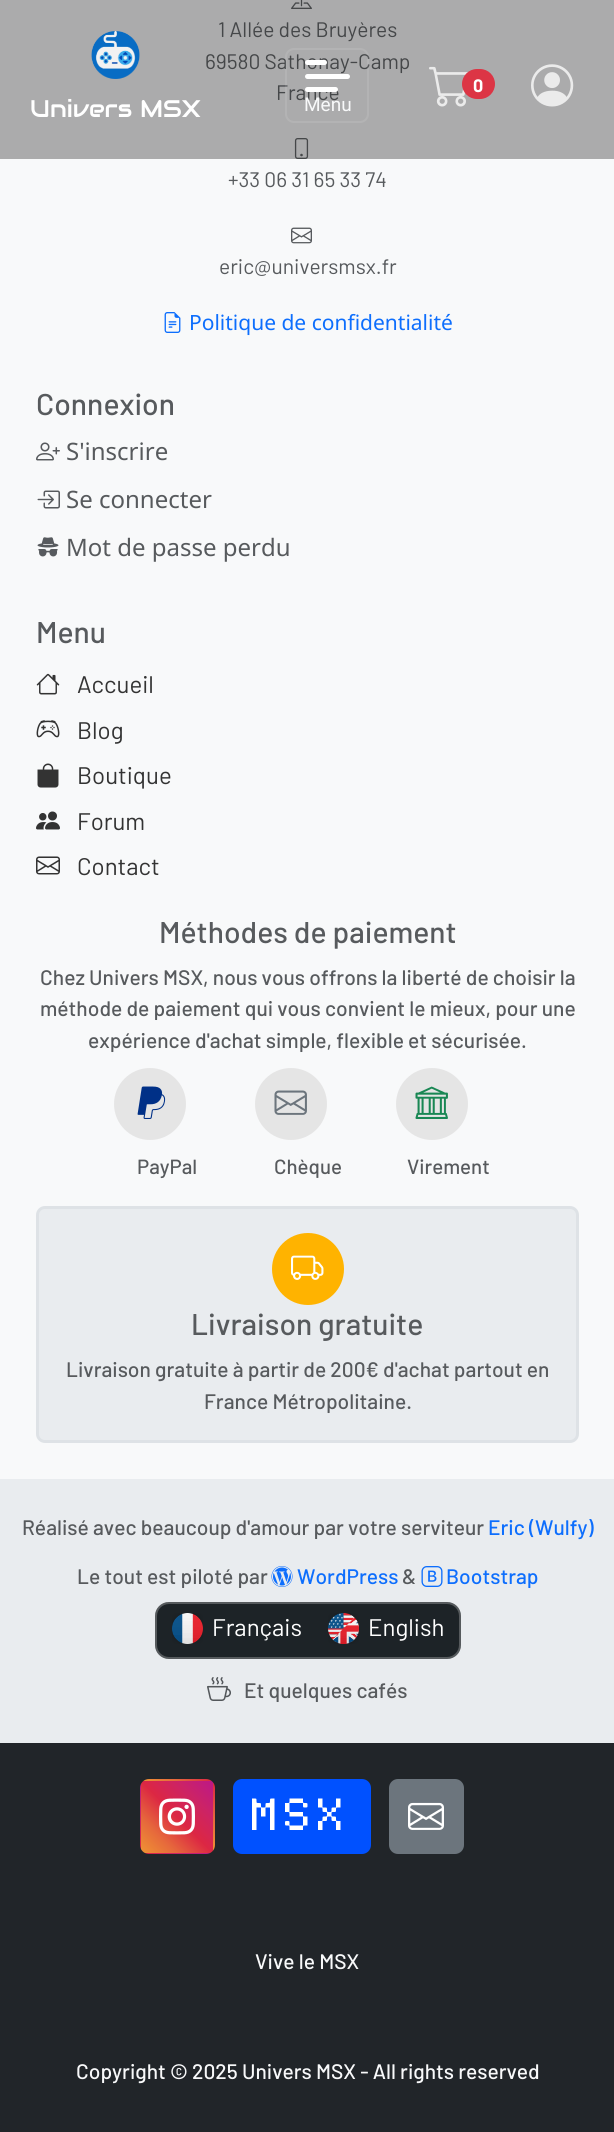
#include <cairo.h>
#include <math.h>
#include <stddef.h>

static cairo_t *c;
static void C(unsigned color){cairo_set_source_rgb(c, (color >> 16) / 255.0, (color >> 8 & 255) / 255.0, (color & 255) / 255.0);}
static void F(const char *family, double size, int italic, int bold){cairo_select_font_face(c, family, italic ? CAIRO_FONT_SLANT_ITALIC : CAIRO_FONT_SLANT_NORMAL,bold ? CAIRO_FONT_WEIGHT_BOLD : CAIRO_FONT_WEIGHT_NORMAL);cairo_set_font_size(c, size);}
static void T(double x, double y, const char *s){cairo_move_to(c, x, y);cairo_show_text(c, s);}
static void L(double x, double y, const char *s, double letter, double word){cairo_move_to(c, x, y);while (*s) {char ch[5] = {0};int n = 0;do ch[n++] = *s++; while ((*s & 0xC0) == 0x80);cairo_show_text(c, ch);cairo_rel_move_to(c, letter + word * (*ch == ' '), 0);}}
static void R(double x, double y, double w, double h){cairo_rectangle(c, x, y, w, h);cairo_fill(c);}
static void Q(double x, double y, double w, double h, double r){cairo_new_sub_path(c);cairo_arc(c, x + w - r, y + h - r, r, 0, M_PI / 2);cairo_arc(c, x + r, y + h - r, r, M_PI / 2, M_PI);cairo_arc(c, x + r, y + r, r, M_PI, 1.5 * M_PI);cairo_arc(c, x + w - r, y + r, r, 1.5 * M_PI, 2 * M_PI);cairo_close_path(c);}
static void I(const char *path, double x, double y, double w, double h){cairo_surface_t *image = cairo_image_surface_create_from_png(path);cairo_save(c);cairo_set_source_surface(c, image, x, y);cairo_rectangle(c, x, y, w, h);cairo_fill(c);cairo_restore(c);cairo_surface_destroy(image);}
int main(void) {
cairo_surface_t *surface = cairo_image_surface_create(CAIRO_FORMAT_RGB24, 614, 2132);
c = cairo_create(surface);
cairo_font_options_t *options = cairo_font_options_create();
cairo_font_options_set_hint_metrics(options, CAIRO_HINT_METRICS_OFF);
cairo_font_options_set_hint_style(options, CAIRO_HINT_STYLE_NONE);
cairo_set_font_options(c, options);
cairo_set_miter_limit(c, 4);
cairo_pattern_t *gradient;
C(0xf8f9fa);
cairo_paint(c);
C(0xababac);
R(0,0,614,159);
I("1.png",291,0,21,9);
F("Barlow",21,0,0);
C(0x454749);
T(218,37,"1 Allée des Bruyères");
T(205,69,"69580 Sathonay-Camp");
T(276,100,"France");
I("2.png",294,138,15,21);
C(0x575a5d);
T(228,187,"+33 06 31 65 33 74");
I("3.png",291,227,21,17);
T(219,274,"eric@universmsx.fr");
I("4.png",164,312,17,21);
F("Noto Sans",21,0,0);
C(0x0d6efd);
T(189,330,"Politique de confidentialité");
F("Barlow Medium",30,0,0);
C(0x575a5d);
T(36,415,"Connexion");
I("5.png",36,442,24,19);
F("Noto Sans",24,0,0);
T(66,460,"S'inscrire");
I("6.png",37,490,23,19);
T(66,508,"Se connecter");
I("7.png",37,537,22,20);
T(66,556,"Mot de passe perdu");
F("Barlow Medium",30,0,0);
T(36,643,"Menu");
I("8.png",36,673,24,22);
F("Barlow",24,0,0);
C(0x333333);
T(77,693,"Accueil");
I("9.png",36,720,24,18);
T(77,739,"Blog");
I("10.png",37,763,22,25);
T(77,784,"Boutique");
I("11.png",36,811,24,19);
T(77,830,"Forum");
I("12.png",36,856,24,19);
T(77,875,"Contact");
F("Barlow Medium",30,0,0);
C(0x575a5d);
T(159,943,"Méthodes de paiement");
F("Barlow Medium",21,0,0);
T(40,985,"Chez Univers MSX, nous vous offrons la liberté de choisir la");
T(40,1016,"méthode de paiement qui vous convient le mieux, pour une");
T(88,1048,"expérience d'achat simple, flexible et sécurisée.");
C(0xe5e5e5);
cairo_new_path(c);
cairo_arc(c,150,1104,36,0,2 * M_PI);
cairo_fill(c);
I("13.png",137,1086,29,33);
F("Barlow Medium",20.5,0,0);
C(0x575a5d);
T(137,1174,"PayPal");
C(0xe5e5e5);
cairo_new_path(c);
cairo_arc(c,291,1104,36,0,2 * M_PI);
cairo_fill(c);
I("14.png",274,1090,33,25);
C(0x575a5d);
T(274,1174,"Chèque");
C(0xe5e5e5);
cairo_new_path(c);
cairo_arc(c,432,1104,36,0,2 * M_PI);
cairo_fill(c);
I("15.png",415,1086,33,33);
C(0x575a5d);
T(407,1174,"Virement");
C(0xe9ecef);
Q(37.5,1207.5,540,234,7.5);
cairo_fill_preserve(c);
C(0xdee2e6);
cairo_set_line_width(c,3);
cairo_stroke(c);
C(0xffb300);
cairo_arc(c,308,1269,36,0,2 * M_PI);
cairo_fill(c);
I("16.png",291,1255,33,25);
F("Barlow Medium",30,0,0);
C(0x575a5d);
T(191,1335,"Livraison gratuite");
F("Barlow Medium",21,0,0);
T(66,1377,"Livraison gratuite à partir de 200€ d'achat partout en");
T(204,1409,"France Métropolitaine.");
C(0xe9ecef);
R(0,1479,614,264);
C(0x575a5d);
T(22,1535,"Réalisé avec beaucoup d'amour par votre serviteur");
C(0x0d6efd);
T(488,1535,"Eric (Wulfy)");
C(0x575a5d);
T(77,1584,"Le tout est piloté par");
I("17.png",271,1566,22,21);
C(0x0d6efd);
T(297,1584,"WordPress");
C(0x575a5d);
T(402,1584,"&");
I("18.png",421,1566,22,21);
C(0x0d6efd);
T(446,1584,"Bootstrap");
C(0x1d2327);
Q(155,1602,306,57,14);
cairo_fill(c);
Q(156,1603,304,55,13);
cairo_set_source_rgba(c,1,1,1,0.25);
cairo_set_line_width(c,2);
cairo_stroke(c);
I("19.png",172,1613,31,31);
F("Barlow",24,0,0);
C(0xffffff);
T(212,1636,"Français");
I("20.png",328,1613,31,31);
T(368,1636,"English");
I("21.png",207,1677,24,24);
F("Barlow Medium",21,0,0);
C(0x575a5d);
T(244,1698,"Et quelques cafés");
C(0x212529);
R(0,1743,614,389);
cairo_save(c);
Q(140,1779,75,75,9);
cairo_clip(c);
gradient = cairo_pattern_create_linear(141,1781,213,1709);
cairo_pattern_add_color_stop_rgba(gradient,0,0.941,0.58,0.2,1);
cairo_pattern_add_color_stop_rgba(gradient,.25,0.902,0.408,0.235,1);
cairo_pattern_add_color_stop_rgba(gradient,.5,0.863,0.153,0.263,1);
cairo_pattern_add_color_stop_rgba(gradient,.75,0.8,0.137,0.4,1);
cairo_pattern_add_color_stop_rgba(gradient,1,0.737,0.094,0.533,1);
cairo_set_source(c,gradient);
cairo_pattern_destroy(gradient);
R(141,1779,72,2);
gradient = cairo_pattern_create_linear(69,1853,141,1781);
cairo_pattern_add_color_stop_rgba(gradient,0,0.941,0.58,0.2,1);
cairo_pattern_add_color_stop_rgba(gradient,.25,0.902,0.408,0.235,1);
cairo_pattern_add_color_stop_rgba(gradient,.5,0.863,0.153,0.263,1);
cairo_pattern_add_color_stop_rgba(gradient,.75,0.8,0.137,0.4,1);
cairo_pattern_add_color_stop_rgba(gradient,1,0.737,0.094,0.533,1);
cairo_set_source(c,gradient);
cairo_pattern_destroy(gradient);
R(140,1781,1,72);
gradient = cairo_pattern_create_linear(141,1853,213,1781);
cairo_pattern_add_color_stop_rgba(gradient,0,0.941,0.58,0.2,1);
cairo_pattern_add_color_stop_rgba(gradient,.25,0.902,0.408,0.235,1);
cairo_pattern_add_color_stop_rgba(gradient,.5,0.863,0.153,0.263,1);
cairo_pattern_add_color_stop_rgba(gradient,.75,0.8,0.137,0.4,1);
cairo_pattern_add_color_stop_rgba(gradient,1,0.737,0.094,0.533,1);
cairo_set_source(c,gradient);
cairo_pattern_destroy(gradient);
R(141,1781,72,72);
gradient = cairo_pattern_create_linear(213,1853,285,1781);
cairo_pattern_add_color_stop_rgba(gradient,0,0.941,0.58,0.2,1);
cairo_pattern_add_color_stop_rgba(gradient,.25,0.902,0.408,0.235,1);
cairo_pattern_add_color_stop_rgba(gradient,.5,0.863,0.153,0.263,1);
cairo_pattern_add_color_stop_rgba(gradient,.75,0.8,0.137,0.4,1);
cairo_pattern_add_color_stop_rgba(gradient,1,0.737,0.094,0.533,1);
cairo_set_source(c,gradient);
cairo_pattern_destroy(gradient);
R(213,1781,2,72);
gradient = cairo_pattern_create_linear(141,1925,213,1853);
cairo_pattern_add_color_stop_rgba(gradient,0,0.941,0.58,0.2,1);
cairo_pattern_add_color_stop_rgba(gradient,.25,0.902,0.408,0.235,1);
cairo_pattern_add_color_stop_rgba(gradient,.5,0.863,0.153,0.263,1);
cairo_pattern_add_color_stop_rgba(gradient,.75,0.8,0.137,0.4,1);
cairo_pattern_add_color_stop_rgba(gradient,1,0.737,0.094,0.533,1);
cairo_set_source(c,gradient);
cairo_pattern_destroy(gradient);
R(141,1853,72,1);
cairo_restore(c);
I("22.png",159,1798,36,37);
C(0x0051ff);
Q(233,1779,138,75,9);
cairo_fill(c);
F("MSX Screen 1 Medium",36,0,0);
C(0xffffff);
L(252,1830,"MSX",-3,0);
C(0x6c757d);
Q(389,1779,75,75,9);
cairo_fill(c);
I("23.png",408,1802,36,28);
F("Barlow Medium",21,0,0);
C(0xf8f9fa);
T(255,1969,"Vive le MSX");
T(76,2079,"Copyright © 2025 Univers MSX - All rights reserved");
I("24.png",429,66,39,41);
C(0xdc3545);
Q(462,69,33,30,15);
cairo_fill(c);
F("Barlow",18,0,1);
C(0xffffff);
T(473,92,"0");
I("25.png",531,64,43,43);
I("26.png",91,31,49,48);
F("Audiowide",24,0,0);
T(30,117,"Univers MSX");
Q(286,49,82,73,8);
cairo_set_source_rgba(c,1,1,1,0.1);
cairo_stroke(c);
C(0xffffff);
Q(305,60,22,5,2.5);
cairo_fill(c);
Q(305,74,45,5,2.5);
cairo_fill(c);
Q(305,87,33,5,2.5);
cairo_fill(c);
F("Roboto",19,0,0);
C(0xf8f9fa);
T(304,111,"Menu");
cairo_surface_write_to_png(surface, "o.png");
cairo_font_options_destroy(options);
cairo_destroy(c);
cairo_surface_destroy(surface);
return 0;
}
